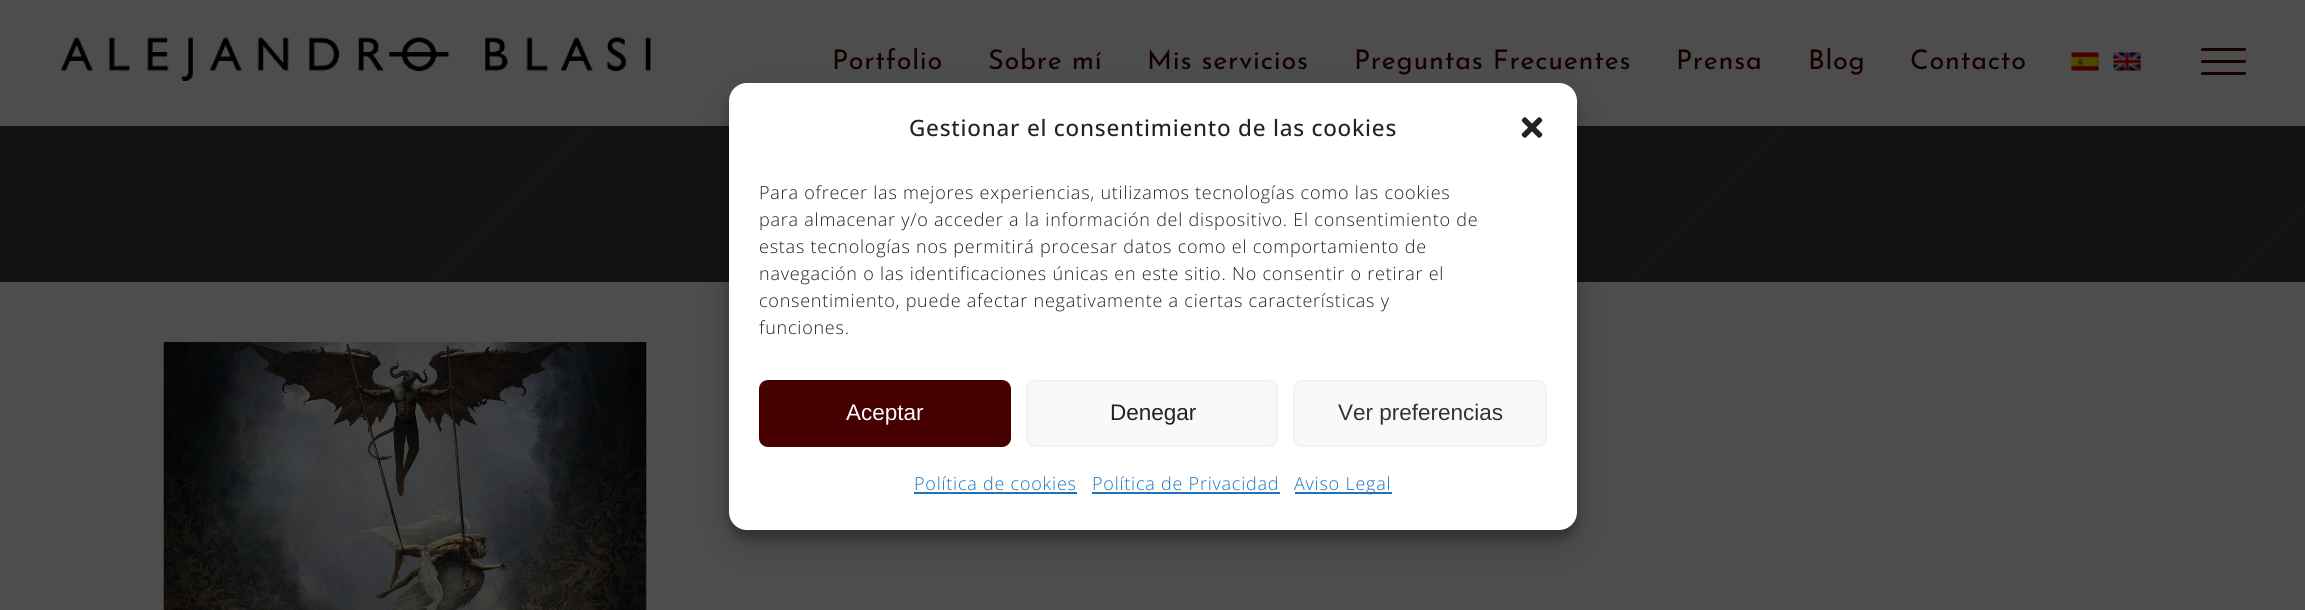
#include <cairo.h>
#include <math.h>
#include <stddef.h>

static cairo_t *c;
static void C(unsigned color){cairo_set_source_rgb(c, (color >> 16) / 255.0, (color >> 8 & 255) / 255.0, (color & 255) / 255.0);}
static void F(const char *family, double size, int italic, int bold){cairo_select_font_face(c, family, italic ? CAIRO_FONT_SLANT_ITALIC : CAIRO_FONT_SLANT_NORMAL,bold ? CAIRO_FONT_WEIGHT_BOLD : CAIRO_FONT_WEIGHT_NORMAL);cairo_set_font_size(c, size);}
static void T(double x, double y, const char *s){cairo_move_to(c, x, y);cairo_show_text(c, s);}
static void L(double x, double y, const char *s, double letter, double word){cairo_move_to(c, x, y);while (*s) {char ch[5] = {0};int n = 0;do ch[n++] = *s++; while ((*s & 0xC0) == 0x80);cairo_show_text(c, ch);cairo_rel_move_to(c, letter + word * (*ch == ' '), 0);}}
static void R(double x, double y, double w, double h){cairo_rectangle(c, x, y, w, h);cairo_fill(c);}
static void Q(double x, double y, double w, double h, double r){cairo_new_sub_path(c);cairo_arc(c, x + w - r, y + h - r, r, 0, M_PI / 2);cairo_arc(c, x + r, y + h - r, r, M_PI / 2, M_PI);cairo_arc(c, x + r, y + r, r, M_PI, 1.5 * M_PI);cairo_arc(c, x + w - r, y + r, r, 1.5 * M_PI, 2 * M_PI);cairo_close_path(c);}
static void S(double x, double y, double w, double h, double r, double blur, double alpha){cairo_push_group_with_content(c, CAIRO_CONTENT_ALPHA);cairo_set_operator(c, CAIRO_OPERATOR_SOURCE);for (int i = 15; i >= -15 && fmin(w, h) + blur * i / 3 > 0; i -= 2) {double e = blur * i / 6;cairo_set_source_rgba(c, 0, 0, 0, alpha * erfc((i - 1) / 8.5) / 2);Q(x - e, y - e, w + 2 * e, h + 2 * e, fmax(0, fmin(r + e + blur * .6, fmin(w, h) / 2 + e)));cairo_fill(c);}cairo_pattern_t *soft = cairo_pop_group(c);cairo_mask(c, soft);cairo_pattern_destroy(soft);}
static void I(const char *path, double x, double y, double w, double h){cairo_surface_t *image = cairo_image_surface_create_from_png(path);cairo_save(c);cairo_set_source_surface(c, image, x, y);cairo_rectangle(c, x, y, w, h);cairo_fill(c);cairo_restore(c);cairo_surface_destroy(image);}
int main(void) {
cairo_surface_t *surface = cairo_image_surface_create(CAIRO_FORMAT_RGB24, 2305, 610);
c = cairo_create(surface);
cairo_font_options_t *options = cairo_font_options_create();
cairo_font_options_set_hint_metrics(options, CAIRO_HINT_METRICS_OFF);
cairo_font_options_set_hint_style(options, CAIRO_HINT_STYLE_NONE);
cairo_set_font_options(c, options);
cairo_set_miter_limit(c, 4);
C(0x4d4d4d);
cairo_paint(c);
I("1.png",61,37,590,44);
F("Josefin Sans",27,0,0);
C(0x150000);
L(832,69,"Portfolio",.77,0);
L(988,69,"Sobre mí",.77,0);
L(1147,69,"Mis servicios",.77,0);
L(1354,69,"Preguntas Frecuentes",.77,0);
L(1676,69,"Prensa",.77,0);
L(1808,69,"Blog",.77,0);
L(1910,69,"Contacto",.77,0);
I("2.png",2071,52,28,19);
I("3.png",2113,52,28,19);
Q(2201,48,45,3,1.5);
cairo_fill(c);
Q(2201,60,45,3,1.5);
cairo_fill(c);
Q(2201,72,45,3,1.5);
cairo_fill(c);
I("4.png",0,126,2305,156);
I("5.png",163,342,484,268);
C(0x000000);
S(729,92,848,447,18,4.5,.23);
S(729,98,848,447,18,15,.19);
C(0xffffff);
Q(729,83,848,447,18);
cairo_fill(c);
F("Open Sans Medium",22.5,0,0);
C(0x222222);
L(909,136,"Gestionar el consentimiento de las cookies",.77,0);
I("6.png",1521,117,22,21);
F("Open Sans Light",18,0,0);
L(759,199,"Para ofrecer las mejores experiencias, utilizamos tecnologías como las cookies",.77,0);
L(759,226,"para almacenar y/o acceder a la información del dispositivo. El consentimiento de",.77,0);
L(759,253,"estas tecnologías nos permitirá procesar datos como el comportamiento de",.77,0);
L(759,280,"navegación o las identificaciones únicas en este sitio. No consentir o retirar el",.77,0);
L(759,307,"consentimiento, puede afectar negativamente a ciertas características y",.77,0);
L(759,334,"funciones.",.77,0);
C(0x460000);
Q(760,381,250,65,8);
cairo_fill_preserve(c);
cairo_stroke(c);
F("Liberation Sans",22.5,0,0);
C(0xffffff);
T(846,420,"Aceptar");
C(0xf9f9f9);
Q(1027,381,250,65,8);
cairo_fill_preserve(c);
C(0xf2f2f2);
cairo_stroke(c);
C(0x222222);
T(1110,420,"Denegar");
C(0xf9f9f9);
Q(1294,381,252,65,8);
cairo_fill_preserve(c);
C(0xf2f2f2);
cairo_stroke(c);
C(0x333333);
T(1338,420,"Ver preferencias");
F("Open Sans Light",18,0,0);
C(0x1e73be);
L(914,490,"Política de cookies",.77,0);
R(914,492,163,2);
L(1092,490,"Política de Privacidad",.77,0);
R(1092,492,188,2);
R(1295,492,97,2);
L(1294,490,"Aviso Legal",.77,0);
cairo_surface_write_to_png(surface, "o.png");
cairo_font_options_destroy(options);
cairo_destroy(c);
cairo_surface_destroy(surface);
return 0;
}
